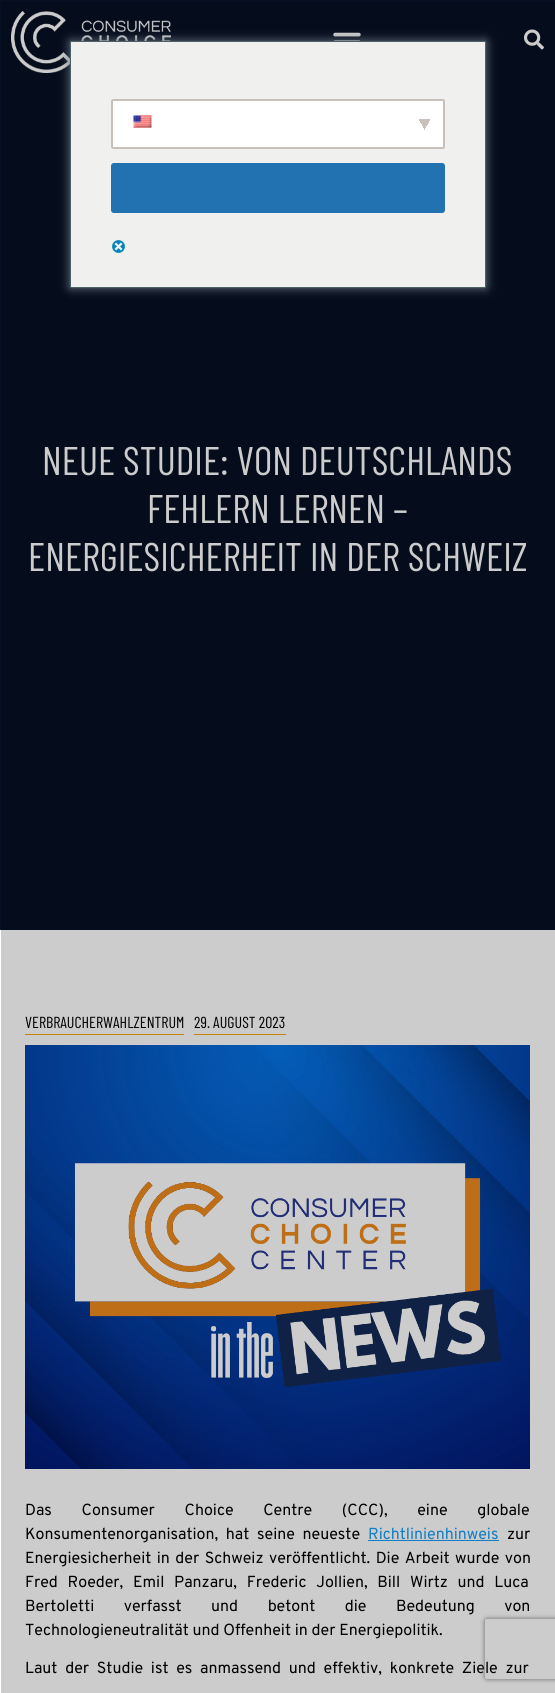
#include <cairo.h>
#include <math.h>
#include <stddef.h>

static cairo_t *c;
static void C(unsigned color){cairo_set_source_rgb(c, (color >> 16) / 255.0, (color >> 8 & 255) / 255.0, (color & 255) / 255.0);}
static void F(const char *family, double size, int italic, int bold){cairo_select_font_face(c, family, italic ? CAIRO_FONT_SLANT_ITALIC : CAIRO_FONT_SLANT_NORMAL,bold ? CAIRO_FONT_WEIGHT_BOLD : CAIRO_FONT_WEIGHT_NORMAL);cairo_set_font_size(c, size);}
static void T(double x, double y, const char *s){cairo_move_to(c, x, y);cairo_show_text(c, s);}
static void L(double x, double y, const char *s, double letter, double word){cairo_move_to(c, x, y);while (*s) {char ch[5] = {0};int n = 0;do ch[n++] = *s++; while ((*s & 0xC0) == 0x80);cairo_show_text(c, ch);cairo_rel_move_to(c, letter + word * (*ch == ' '), 0);}}
static void R(double x, double y, double w, double h){cairo_rectangle(c, x, y, w, h);cairo_fill(c);}
static void Q(double x, double y, double w, double h, double r){cairo_new_sub_path(c);cairo_arc(c, x + w - r, y + h - r, r, 0, M_PI / 2);cairo_arc(c, x + r, y + h - r, r, M_PI / 2, M_PI);cairo_arc(c, x + r, y + r, r, M_PI, 1.5 * M_PI);cairo_arc(c, x + w - r, y + r, r, 1.5 * M_PI, 2 * M_PI);cairo_close_path(c);}
static void S(double x, double y, double w, double h, double r, double blur, double alpha){cairo_push_group_with_content(c, CAIRO_CONTENT_ALPHA);cairo_set_operator(c, CAIRO_OPERATOR_SOURCE);for (int i = 15; i >= -15 && fmin(w, h) + blur * i / 3 > 0; i -= 2) {double e = blur * i / 6;cairo_set_source_rgba(c, 0, 0, 0, alpha * erfc((i - 1) / 8.5) / 2);Q(x - e, y - e, w + 2 * e, h + 2 * e, fmax(0, fmin(r + e + blur * .6, fmin(w, h) / 2 + e)));cairo_fill(c);}cairo_pattern_t *soft = cairo_pop_group(c);cairo_mask(c, soft);cairo_pattern_destroy(soft);}
static void I(const char *path, double x, double y, double w, double h){cairo_surface_t *image = cairo_image_surface_create_from_png(path);cairo_save(c);cairo_set_source_surface(c, image, x, y);cairo_rectangle(c, x, y, w, h);cairo_fill(c);cairo_restore(c);cairo_surface_destroy(image);}
int main(void) {
cairo_surface_t *surface = cairo_image_surface_create(CAIRO_FORMAT_RGB24, 555, 1693);
c = cairo_create(surface);
cairo_font_options_t *options = cairo_font_options_create();
cairo_font_options_set_hint_metrics(options, CAIRO_HINT_METRICS_OFF);
cairo_font_options_set_hint_style(options, CAIRO_HINT_STYLE_NONE);
cairo_set_font_options(c, options);
cairo_set_miter_limit(c, 4);
cairo_pattern_t *gradient;
C(0xffffff);
cairo_paint(c);
C(0xcccccc);
R(1,930,554,763);
C(0x061024);
R(0,0,555,84);
C(0x050d1d);
R(1,1,554,83);
I("1.png",11,11,160,62);
I("2.png",333,32,28,9);
I("3.png",524,29,20,21);
R(1,84,554,846);
C(0x6c7781);
S(70,41,416,247,0,5,1);
C(0xf0f0ee);
cairo_rectangle(c,70.5,41.5,415,246);
cairo_fill_preserve(c);
C(0x4c6066);
cairo_set_line_width(c,1);
cairo_stroke(c);
C(0xffffff);
Q(111,99,334,50,2);
cairo_fill(c);
gradient = cairo_pattern_create_linear(423,122,432,127);
cairo_pattern_add_color_stop_rgba(gradient,.5,0.788,0.753,0.733,1);
cairo_pattern_add_color_stop_rgba(gradient,.5,1,1,1,1);
cairo_set_source(c,gradient);
cairo_pattern_destroy(gradient);
R(425,119,5,12);
gradient = cairo_pattern_create_linear(417,127,426,122);
cairo_pattern_add_color_stop_rgba(gradient,.5,1,1,1,1);
cairo_pattern_add_color_stop_rgba(gradient,.5,0.788,0.753,0.733,1);
cairo_set_source(c,gradient);
cairo_pattern_destroy(gradient);
R(419,119,6,12);
Q(112,100,332,48,1);
C(0xc9c0bb);
cairo_set_line_width(c,2);
cairo_stroke(c);
I("4.png",133,115,19,13);
C(0x2271b1);
Q(111.5,163.5,333,49,2.5);
cairo_fill_preserve(c);
cairo_set_line_width(c,1);
cairo_stroke(c);
I("5.png",112,240,13,13);
C(0x061024);
R(0,84,1,846);
F("Barlow Condensed",40,0,0);
C(0xcccccc);
T(42,475,"NEUE STUDIE: VON DEUTSCHLANDS");
T(147,523,"FEHLERN LERNEN –");
T(28,571,"ENERGIESICHERHEIT IN DER SCHWEIZ");
C(0xc5820f);
R(25,1034,159,1);
F("Barlow Condensed",16,0,0);
C(0x000000);
T(25,1028,"VERBRAUCHERWAHLZENTRUM");
C(0xc5820f);
R(194,1034,92,1);
C(0x000000);
T(194,1028,"29. AUGUST 2023");
I("6.png",25,1045,505,424);
F("Overpass",16,0,0);
L(25,1515,"Das Consumer Choice Centre (CCC), eine globale",0,26);
L(25,1539,"Konsumentenorganisation, hat seine neueste",0,4);
C(0x127ec3);
T(368,1539,"Richtlinienhinweis");
R(368,1540,131,1);
C(0x000000);
T(507,1539,"zur");
L(25,1563,"Energiesicherheit in der Schweiz veröffentlicht. Die Arbeit wurde von",0,1.75);
L(25,1587,"Fred Roeder, Emil Panzaru, Frederic Jollien, Bill Wirtz und Luca",0,6);
L(25,1611,"Bertoletti verfasst und betont die Bedeutung von",0,25.75);
T(25,1635,"Technologieneutralität und Offenheit in der Energiepolitik.");
L(25,1673,"Laut der Studie ist es anmassend und effektiv, konkrete Ziele zur",0,4);
cairo_save(c);
cairo_set_fill_rule(c,CAIRO_FILL_RULE_EVEN_ODD);
cairo_new_path(c);
cairo_move_to(c,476,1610);
cairo_line_to(c,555,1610);
cairo_line_to(c,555,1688);
cairo_line_to(c,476,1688);
cairo_close_path(c);
cairo_move_to(c,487,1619);
cairo_line_to(c,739,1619);
cairo_curve_to(c,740,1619,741,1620,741,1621);
cairo_line_to(c,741,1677);
cairo_curve_to(c,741,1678,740,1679,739,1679);
cairo_line_to(c,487,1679);
cairo_curve_to(c,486,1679,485,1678,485,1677);
cairo_line_to(c,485,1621);
cairo_curve_to(c,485,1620,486,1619,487,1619);
cairo_close_path(c);
cairo_clip(c);
C(0x666666);
S(485,1619,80,60,2,2.5,1);
cairo_restore(c);
cairo_surface_write_to_png(surface, "o.png");
cairo_font_options_destroy(options);
cairo_destroy(c);
cairo_surface_destroy(surface);
return 0;
}
